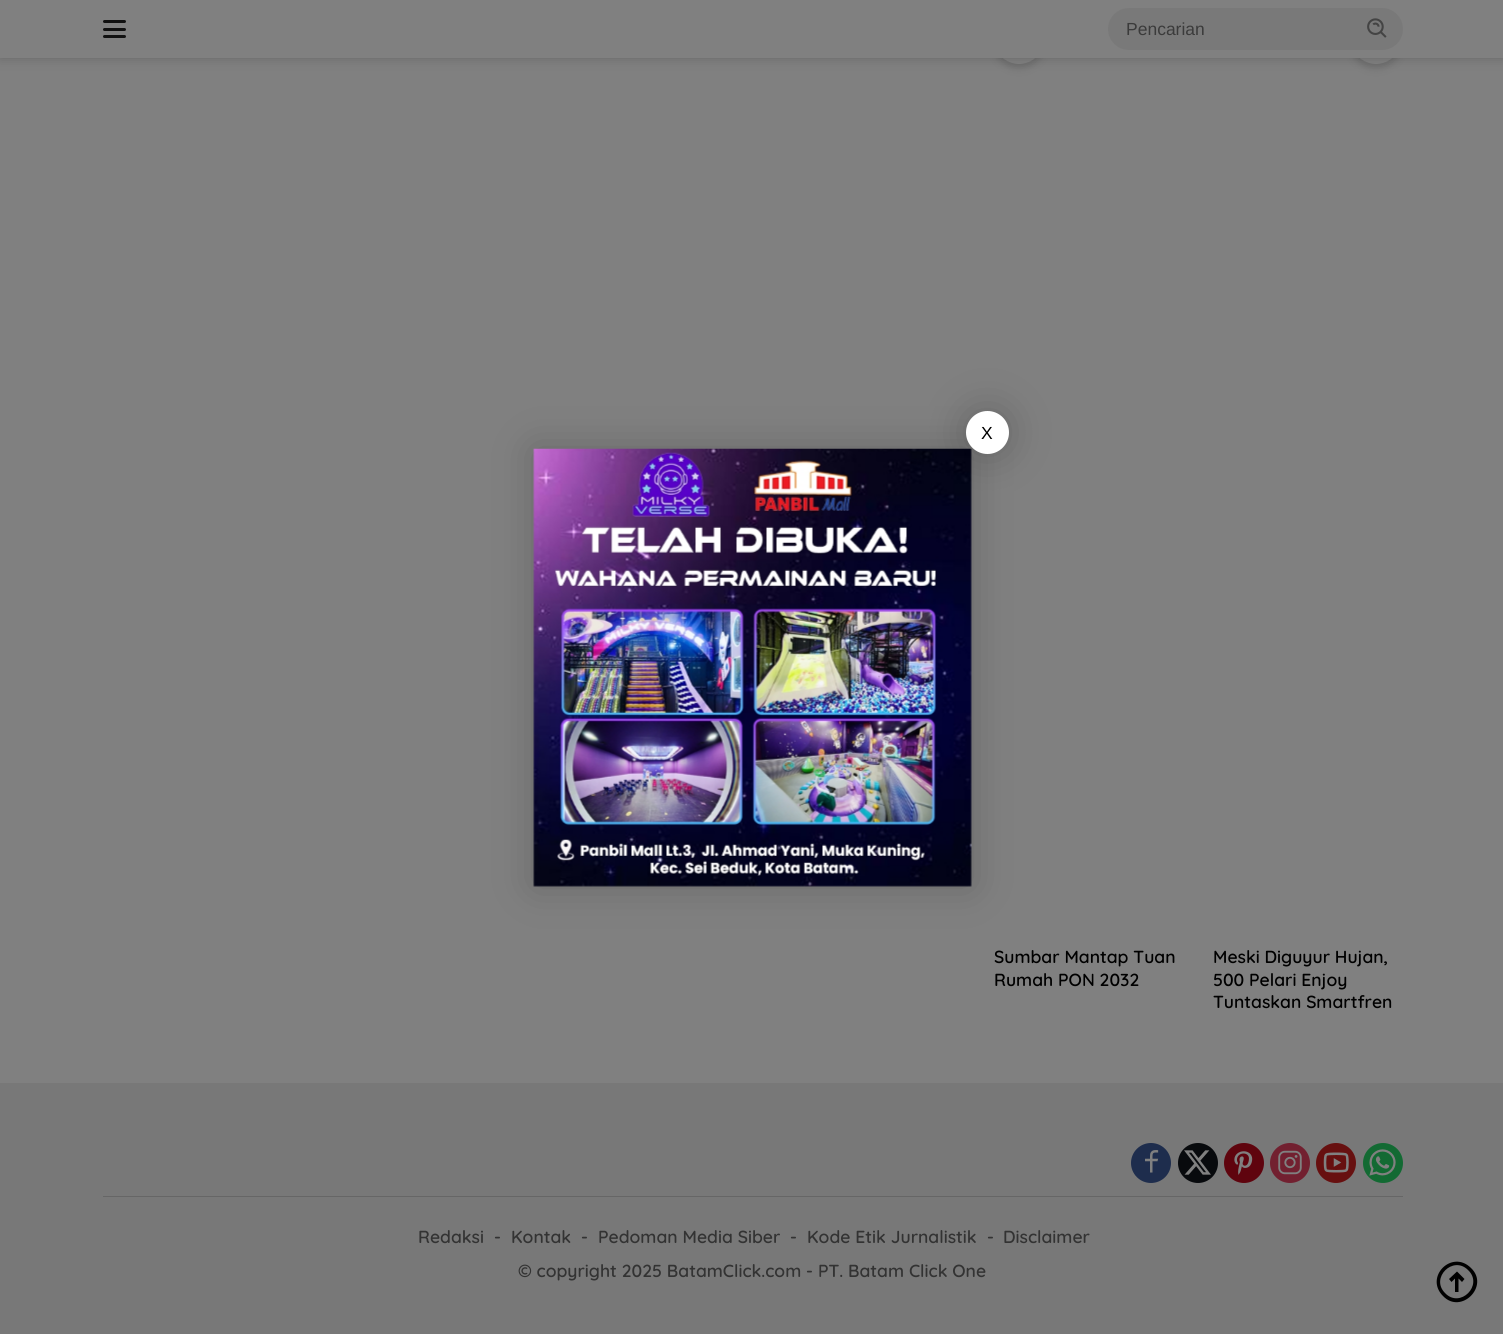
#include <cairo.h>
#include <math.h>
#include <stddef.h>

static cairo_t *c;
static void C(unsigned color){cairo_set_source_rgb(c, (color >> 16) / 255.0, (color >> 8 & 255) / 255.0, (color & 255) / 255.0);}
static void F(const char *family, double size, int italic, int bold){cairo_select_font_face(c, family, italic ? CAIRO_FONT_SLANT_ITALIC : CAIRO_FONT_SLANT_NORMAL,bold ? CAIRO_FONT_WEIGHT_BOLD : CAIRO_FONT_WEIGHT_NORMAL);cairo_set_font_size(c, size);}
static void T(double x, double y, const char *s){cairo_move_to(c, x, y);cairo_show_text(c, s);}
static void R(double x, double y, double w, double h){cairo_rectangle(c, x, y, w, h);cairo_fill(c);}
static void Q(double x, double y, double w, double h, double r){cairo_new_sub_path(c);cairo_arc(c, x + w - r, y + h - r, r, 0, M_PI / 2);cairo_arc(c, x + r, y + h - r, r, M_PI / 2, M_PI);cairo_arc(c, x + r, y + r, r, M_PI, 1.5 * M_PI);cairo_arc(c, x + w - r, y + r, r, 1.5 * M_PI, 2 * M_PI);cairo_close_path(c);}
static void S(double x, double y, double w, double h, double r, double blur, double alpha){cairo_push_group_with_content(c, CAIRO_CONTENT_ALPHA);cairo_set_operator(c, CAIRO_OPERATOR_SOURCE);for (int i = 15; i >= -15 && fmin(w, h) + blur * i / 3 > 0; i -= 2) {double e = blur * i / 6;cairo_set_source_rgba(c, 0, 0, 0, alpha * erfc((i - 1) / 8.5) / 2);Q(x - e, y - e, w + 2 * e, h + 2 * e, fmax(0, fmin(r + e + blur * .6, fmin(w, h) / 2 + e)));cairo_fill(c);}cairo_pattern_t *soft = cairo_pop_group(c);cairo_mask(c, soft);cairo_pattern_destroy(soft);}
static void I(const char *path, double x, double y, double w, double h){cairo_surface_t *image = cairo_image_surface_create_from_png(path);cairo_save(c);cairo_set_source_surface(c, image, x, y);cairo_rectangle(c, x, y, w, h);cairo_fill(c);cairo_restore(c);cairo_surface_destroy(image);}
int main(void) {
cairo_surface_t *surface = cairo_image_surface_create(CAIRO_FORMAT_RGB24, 1503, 1334);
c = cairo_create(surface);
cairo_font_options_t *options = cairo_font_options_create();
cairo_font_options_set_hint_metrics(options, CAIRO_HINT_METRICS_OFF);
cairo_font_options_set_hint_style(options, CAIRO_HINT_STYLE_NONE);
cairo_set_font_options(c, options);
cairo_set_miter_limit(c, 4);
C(0x808080);
cairo_paint(c);
C(0x1a1a1a);
S(994,18,50,50,25,4,.2);
C(0x808080);
cairo_arc(c,1019,39,25,0,2 * M_PI);
cairo_fill(c);
C(0x1a1a1a);
S(1351,18,50,50,25,4,.2);
C(0x808080);
cairo_arc(c,1376,39,25,0,2 * M_PI);
cairo_fill(c);
C(0x000000);
S(0,0,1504,58,0,6,.2);
C(0x808080);
R(0,0,1503,58);
C(0x111111);
Q(103,20,23,3,1.5);
cairo_fill(c);
Q(103,28,23,3,1.5);
cairo_fill(c);
Q(103,35,23,3,1.5);
cairo_fill(c);
C(0x797979);
Q(1108,8,295,42,21);
cairo_fill(c);
F("Liberation Sans",17.5,0,0);
C(0x3b3b3b);
T(1126,35,"Pencarian");
I("1.png",1367,18,20,20);
C(0x000000);
S(534,449,437,437,0,20,.2);
I("2.png",533,448,439,439);
S(966,411,43,43,21.5,20,.2);
C(0xffffff);
cairo_arc(c,987.5,432.5,21.5,0,2 * M_PI);
cairo_fill(c);
C(0x000000);
T(981,439,"X");
F("Quicksand SemiBold",17.5,0,0);
T(994,963,"Sumbar Mantap Tuan");
T(994,986,"Rumah PON 2032");
T(1213,963,"Meski Diguyur Hujan,");
T(1213,986,"500 Pelari Enjoy");
T(1213,1008,"Tuntaskan Smartfren");
C(0x787878);
R(0,1083,1503,251);
C(0x666666);
R(103,1196,1300,1);
C(0x1e2d4d);
cairo_new_path(c);
cairo_arc(c,1151,1163,20,0,2 * M_PI);
cairo_fill(c);
I("3.png",1145,1150,14,23);
C(0x080a0d);
cairo_arc(c,1198,1163,20,0,2 * M_PI);
cairo_fill(c);
I("4.png",1184,1150,27,25);
C(0x5f040e);
cairo_arc(c,1244,1163,20,0,2 * M_PI);
cairo_fill(c);
I("5.png",1234,1151,19,24);
C(0x722030);
cairo_arc(c,1290,1163,20,0,2 * M_PI);
cairo_fill(c);
I("6.png",1278,1150,24,25);
C(0x671010);
cairo_arc(c,1336,1163,20,0,2 * M_PI);
cairo_fill(c);
I("7.png",1323,1152,26,21);
C(0x136a33);
cairo_arc(c,1383,1163,20,0,2 * M_PI);
cairo_fill(c);
I("8.png",1369,1149,27,27);
C(0x333333);
T(418,1243,"Redaksi");
T(494,1243,"-");
T(511,1243,"Kontak");
T(581,1243,"-");
T(598,1243,"Pedoman Media Siber");
T(790,1243,"-");
T(807,1243,"Kode Etik Jurnalistik");
T(987,1243,"-");
T(1003,1243,"Disclaimer");
T(518,1277,"© copyright 2025 BatamClick.com - PT. Batam Click One");
C(0x000000);
cairo_new_path(c);
cairo_move_to(c,1462,1282);
cairo_line_to(c,1464.5,1279);
cairo_line_to(c,1457,1271.5);
cairo_line_to(c,1449,1279);
cairo_line_to(c,1451.5,1282);
cairo_line_to(c,1455,1278.5);
cairo_line_to(c,1455,1292);
cairo_line_to(c,1458.5,1292);
cairo_line_to(c,1458.5,1278.5);
cairo_close_path(c);
cairo_fill(c);
cairo_set_fill_rule(c,CAIRO_FILL_RULE_EVEN_ODD);
cairo_new_path(c);
cairo_move_to(c,1471,1268);
cairo_curve_to(c,1452,1249,1424,1277,1443,1296);
cairo_curve_to(c,1461,1315,1490,1286,1471,1268);
cairo_close_path(c);
cairo_move_to(c,1468,1270);
cairo_curve_to(c,1453,1255,1430,1278,1445,1293);
cairo_curve_to(c,1460,1309,1484,1285,1468,1270);
cairo_close_path(c);
cairo_fill(c);
cairo_surface_write_to_png(surface, "o.png");
cairo_font_options_destroy(options);
cairo_destroy(c);
cairo_surface_destroy(surface);
return 0;
}
